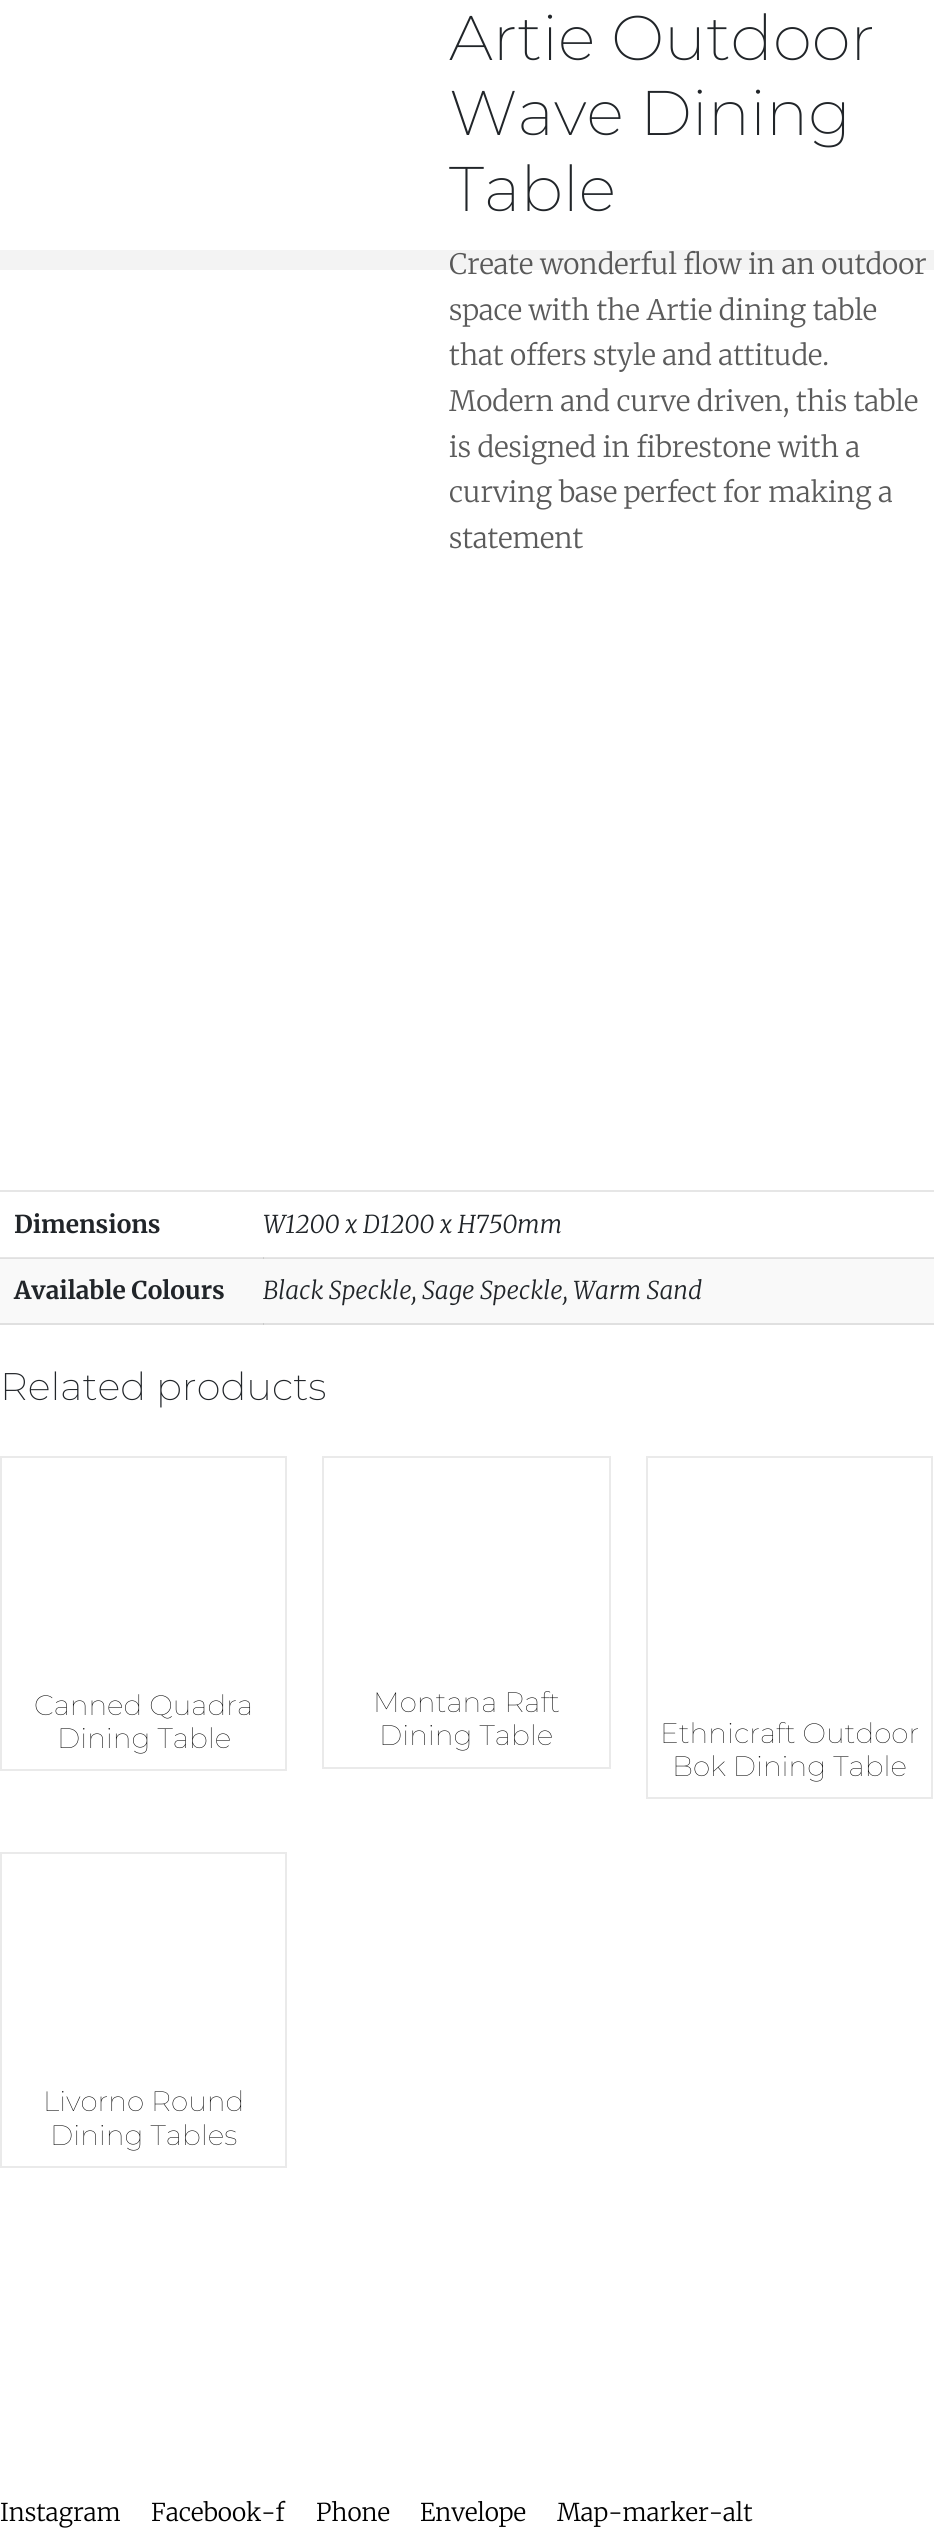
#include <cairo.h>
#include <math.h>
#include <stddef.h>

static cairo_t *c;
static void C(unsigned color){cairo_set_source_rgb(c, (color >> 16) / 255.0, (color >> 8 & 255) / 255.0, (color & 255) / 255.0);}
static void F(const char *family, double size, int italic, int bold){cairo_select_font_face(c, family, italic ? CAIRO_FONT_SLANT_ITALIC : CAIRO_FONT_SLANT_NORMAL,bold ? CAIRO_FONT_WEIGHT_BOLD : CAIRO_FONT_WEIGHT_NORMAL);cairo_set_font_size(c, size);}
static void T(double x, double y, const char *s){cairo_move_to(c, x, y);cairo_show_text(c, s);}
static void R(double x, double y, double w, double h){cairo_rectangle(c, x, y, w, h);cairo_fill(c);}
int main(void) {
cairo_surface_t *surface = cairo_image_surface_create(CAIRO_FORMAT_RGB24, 934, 2533);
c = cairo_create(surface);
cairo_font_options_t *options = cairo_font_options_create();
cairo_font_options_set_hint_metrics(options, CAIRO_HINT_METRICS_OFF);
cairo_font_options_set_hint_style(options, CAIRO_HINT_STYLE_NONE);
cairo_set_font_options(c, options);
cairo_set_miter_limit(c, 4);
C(0xffffff);
cairo_paint(c);
C(0xe6e6e6);
R(0,1257,934,1);
C(0xcfcfcf);
R(263,1257,1,2);
F("Montserrat ExtraLight",63,0,0);
C(0x212529);
T(449,60,"Artie Outdoor");
T(449,135,"Wave Dining");
T(449,211,"Table");
F("Merriweather Light",28,0,0);
C(0x5b5b5b);
T(449,274,"Create wonderful flow in an outdoor");
T(449,320,"space with the Artie dining table");
T(449,365,"that offers style and attitude.");
T(449,411,"Modern and curve driven, this table");
T(449,457,"is designed in fibrestone with a");
T(449,502,"curving base perfect for making a");
T(449,548,"statement");
C(0xe6e6e6);
R(0,1190,934,2);
F("Merriweather",24.5,0,1);
C(0x212529);
T(14,1233,"Dimensions");
F("Merriweather Light",24.5,1,0);
T(263,1233,"W1200 x D1200 x H750mm");
C(0xf9f9f9);
R(0,1259,934,64);
C(0xe0e0e0);
R(0,1258,934,1);
R(0,1323,934,2);
F("Merriweather",24.5,0,1);
C(0x212529);
T(14,1299,"Available Colours");
C(0xcacaca);
R(263,1258,1,1);
R(263,1323,1,2);
F("Merriweather Light",24.5,1,0);
C(0x212529);
T(263,1299,"Black Speckle, Sage Speckle, Warm Sand");
F("Montserrat ExtraLight",38.5,0,0);
T(0,1400,"Related products");
cairo_rectangle(c,1,1457,285,313);
C(0xeaeaea);
cairo_stroke(c);
F("Montserrat Thin",28,0,0);
C(0x000000);
T(34,1715,"Canned Quadra");
T(57,1748,"Dining Table");
cairo_rectangle(c,323,1457,287,311);
C(0xeaeaea);
cairo_stroke(c);
C(0x000000);
T(373,1712,"Montana Raft");
T(379,1745,"Dining Table");
cairo_rectangle(c,647,1457,285,341);
C(0xeaeaea);
cairo_stroke(c);
C(0x000000);
T(660,1743,"Ethnicraft Outdoor");
T(672,1776,"Bok Dining Table");
cairo_rectangle(c,1,1853,285,314);
C(0xeaeaea);
cairo_stroke(c);
C(0x000000);
T(43,2111,"Livorno Round");
T(50,2145,"Dining Tables");
cairo_set_source_rgba(c,0,0,0,0.05);
R(0,250,934,20);
F("Merriweather Light",24.5,0,0);
C(0x000000);
T(0,2521,"Instagram");
T(151,2521,"Facebook-f");
T(316,2521,"Phone");
T(420,2521,"Envelope");
T(557,2521,"Map-marker-alt");
cairo_surface_write_to_png(surface, "o.png");
cairo_font_options_destroy(options);
cairo_destroy(c);
cairo_surface_destroy(surface);
return 0;
}
